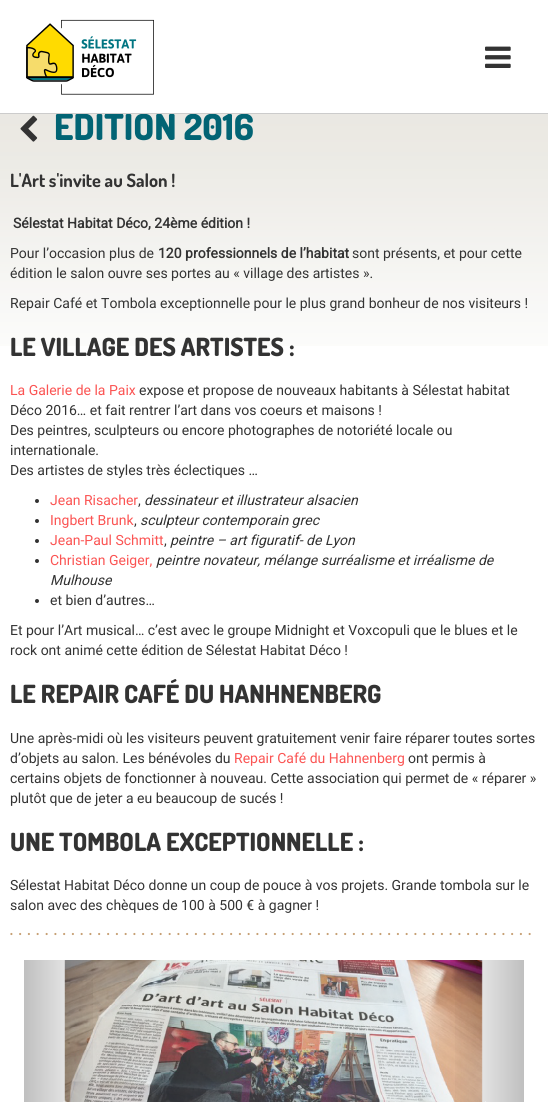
#include <cairo.h>
#include <math.h>
#include <stddef.h>

static cairo_t *c;
static void C(unsigned color){cairo_set_source_rgb(c, (color >> 16) / 255.0, (color >> 8 & 255) / 255.0, (color & 255) / 255.0);}
static void F(const char *family, double size, int italic, int bold){cairo_select_font_face(c, family, italic ? CAIRO_FONT_SLANT_ITALIC : CAIRO_FONT_SLANT_NORMAL,bold ? CAIRO_FONT_WEIGHT_BOLD : CAIRO_FONT_WEIGHT_NORMAL);cairo_set_font_size(c, size);}
static void T(double x, double y, const char *s){cairo_move_to(c, x, y);cairo_show_text(c, s);}
static void L(double x, double y, const char *s, double letter, double word){cairo_move_to(c, x, y);while (*s) {char ch[5] = {0};int n = 0;do ch[n++] = *s++; while ((*s & 0xC0) == 0x80);cairo_show_text(c, ch);cairo_rel_move_to(c, letter + word * (*ch == ' '), 0);}}
static void R(double x, double y, double w, double h){cairo_rectangle(c, x, y, w, h);cairo_fill(c);}
static void I(const char *path, double x, double y, double w, double h){cairo_surface_t *image = cairo_image_surface_create_from_png(path);cairo_save(c);cairo_set_source_surface(c, image, x, y);cairo_rectangle(c, x, y, w, h);cairo_fill(c);cairo_restore(c);cairo_surface_destroy(image);}
int main(void) {
cairo_surface_t *surface = cairo_image_surface_create(CAIRO_FORMAT_RGB24, 548, 1102);
c = cairo_create(surface);
cairo_font_options_t *options = cairo_font_options_create();
cairo_font_options_set_hint_metrics(options, CAIRO_HINT_METRICS_OFF);
cairo_font_options_set_hint_style(options, CAIRO_HINT_STYLE_NONE);
cairo_set_font_options(c, options);
cairo_set_miter_limit(c, 4);
cairo_pattern_t *gradient;
C(0xffffff);
cairo_paint(c);
I("3.png",0,114,548,232);
F("Dosis ExtraBold",36,0,0);
C(0x026474);
T(54,140,"ÉDITION 2016");
C(0xffffff);
R(61,105,9,7);
C(0xcccccc);
R(0,113,548,1);
I("1.png",26,19,128,76);
I("2.png",485,46,26,22);
I("4.png",20,115,18,27);
F("Dosis",18.25,0,1);
C(0x333333);
T(10,187,"L'Art s'invite au Salon !");
F("Roboto",14,0,1);
T(13,228,"Sélestat Habitat Déco, 24ème édition !");
F("Roboto",14,0,0);
T(10,258,"Pour l’occasion plus de");
F("Roboto",14,0,1);
T(158,258,"120 professionnels de l’habitat");
F("Roboto",14,0,0);
T(352,258,"sont présents, et pour cette");
T(10,278,"édition le salon ouvre ses portes au « village des artistes ».");
T(10,308,"Repair Café et Tombola exceptionnelle pour le plus grand bonheur de nos visiteurs !");
F("Dosis ExtraBold",25,0,0);
T(10,356,"LE VILLAGE DES ARTISTES :");
F("Roboto",14,0,0);
C(0xfb5453);
T(10,395,"La Galerie de la Paix");
C(0x333333);
T(139,395,"expose et propose de nouveaux habitants à Sélestat habitat");
T(10,415,"Déco 2016… et fait rentrer l’art dans vos coeurs et maisons !");
T(10,435,"Des peintres, sculpteurs ou encore photographes de notoriété locale ou");
T(10,455,"internationale.");
T(10,475,"Des artistes de styles très éclectiques …");
cairo_new_path(c);
cairo_arc(c,37,501,2,0,2 * M_PI);
cairo_fill(c);
C(0xfb5453);
T(50,505,"Jean Risacher");
F("Roboto",14,1,0);
C(0x333333);
T(144,505,"dessinateur et illustrateur alsacien");
F("Roboto",14,0,0);
T(138,505,",");
cairo_new_path(c);
cairo_arc(c,37,521,2,0,2 * M_PI);
cairo_fill(c);
C(0xfb5453);
T(50,525,"Ingbert Brunk");
F("Roboto",14,1,0);
C(0x333333);
T(140,525,"sculpteur contemporain grec");
F("Roboto",14,0,0);
T(134,525,",");
cairo_new_path(c);
cairo_arc(c,37,541,2,0,2 * M_PI);
cairo_fill(c);
C(0xfb5453);
T(50,545,"Jean-Paul Schmitt");
F("Roboto",14,1,0);
C(0x333333);
T(170,545,"peintre – art figuratif- de Lyon");
F("Roboto",14,0,0);
T(164,545,",");
cairo_new_path(c);
cairo_arc(c,37,561,2,0,2 * M_PI);
cairo_fill(c);
C(0xfb5453);
T(50,565,"Christian Geiger,");
F("Roboto",14,1,0);
C(0x333333);
T(156,565,"peintre novateur, mélange surréalisme et irréalisme de");
T(50,585,"Mulhouse");
cairo_new_path(c);
cairo_arc(c,37,601,2,0,2 * M_PI);
cairo_fill(c);
F("Roboto",14,0,0);
T(50,605,"et bien d’autres…");
T(10,635,"Et pour l’Art musical… c’est avec le groupe Midnight et Voxcopuli que le blues et le");
T(10,655,"rock ont animé cette édition de Sélestat Habitat Déco !");
F("Dosis ExtraBold",25,0,0);
T(10,703,"LE REPAIR CAFÉ DU HANHNENBERG");
F("Roboto",14,0,0);
T(10,743,"Une après-midi où les visiteurs peuvent gratuitement venir faire réparer toutes sortes");
T(10,763,"d’objets au salon. Les bénévoles du");
C(0xfb5453);
T(234,763,"Repair Café du Hahnenberg");
C(0x333333);
T(408,763,"ont permis à");
T(10,783,"certains objets de fonctionner à nouveau. Cette association qui permet de « réparer »");
T(10,803,"plutôt que de jeter a eu beaucoup de sucés !");
F("Dosis ExtraBold",25,0,0);
T(10,851,"UNE TOMBOLA EXCEPTIONNELLE :");
F("Roboto",14,0,0);
T(10,890,"Sélestat Habitat Déco donne un coup de pouce à vos projets. Grande tombola sur le");
T(10,910,"salon avec des chèques de 100 à 500 € à gagner !");
F("Dosis ExtraBold",14,0,0);
C(0xc69f73);
L(10,935,"............................................................",6,0);
I("6.png",64,960,419,142);
gradient = cairo_pattern_create_linear(24,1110,99,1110);
cairo_pattern_add_color_stop_rgba(gradient,0,0,0,0,.25);
cairo_pattern_add_color_stop_rgba(gradient,1,0,0,0,0);
cairo_set_source(c,gradient);
cairo_pattern_destroy(gradient);
R(24,960,69,142);
I("5.png",63,1100,4,2);
gradient = cairo_pattern_create_linear(449,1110,524,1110);
cairo_pattern_add_color_stop_rgba(gradient,0,0,0,0,0);
cairo_pattern_add_color_stop_rgba(gradient,1,0,0,0,.25);
cairo_set_source(c,gradient);
cairo_pattern_destroy(gradient);
R(455,960,69,142);
C(0xebebeb);
R(485,1101,1,1);
cairo_surface_write_to_png(surface, "o.png");
cairo_font_options_destroy(options);
cairo_destroy(c);
cairo_surface_destroy(surface);
return 0;
}
